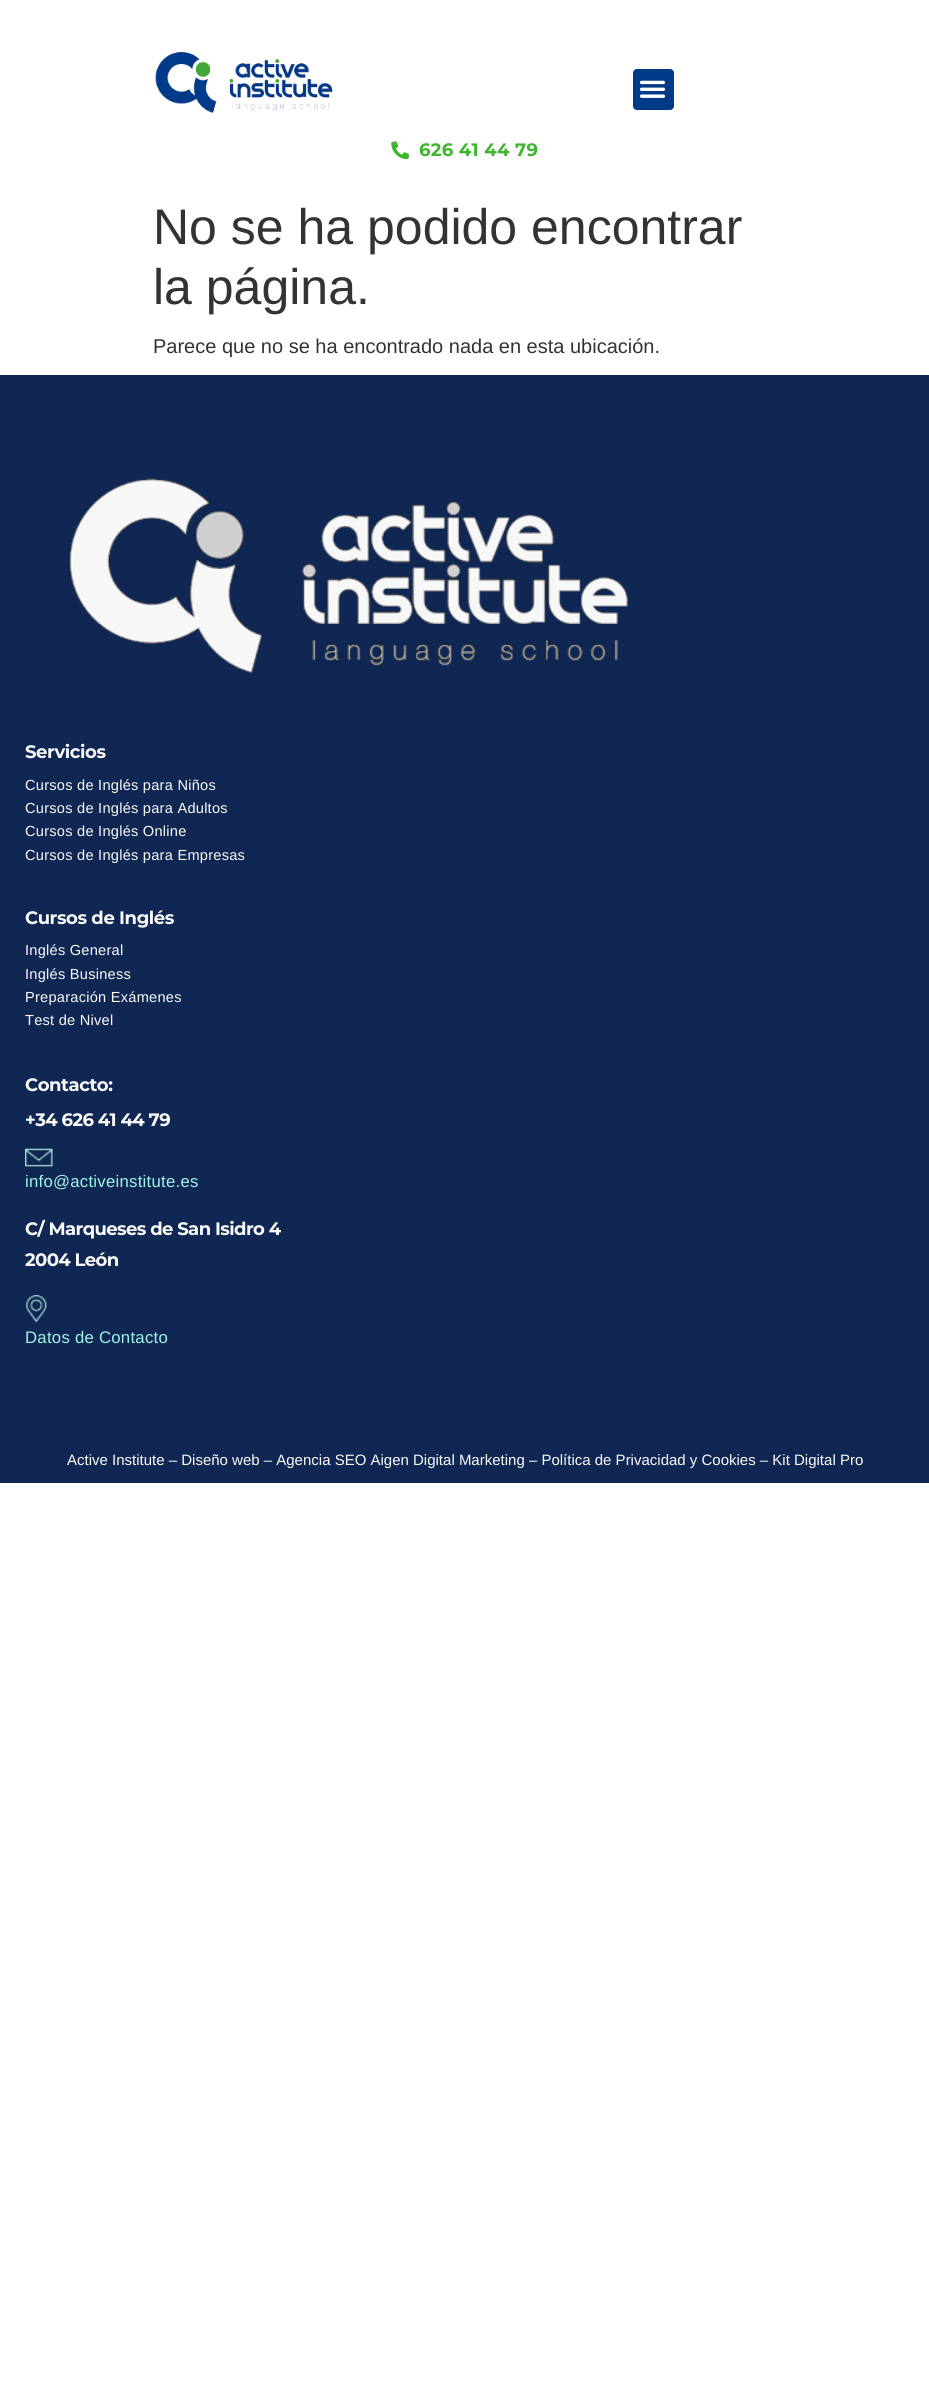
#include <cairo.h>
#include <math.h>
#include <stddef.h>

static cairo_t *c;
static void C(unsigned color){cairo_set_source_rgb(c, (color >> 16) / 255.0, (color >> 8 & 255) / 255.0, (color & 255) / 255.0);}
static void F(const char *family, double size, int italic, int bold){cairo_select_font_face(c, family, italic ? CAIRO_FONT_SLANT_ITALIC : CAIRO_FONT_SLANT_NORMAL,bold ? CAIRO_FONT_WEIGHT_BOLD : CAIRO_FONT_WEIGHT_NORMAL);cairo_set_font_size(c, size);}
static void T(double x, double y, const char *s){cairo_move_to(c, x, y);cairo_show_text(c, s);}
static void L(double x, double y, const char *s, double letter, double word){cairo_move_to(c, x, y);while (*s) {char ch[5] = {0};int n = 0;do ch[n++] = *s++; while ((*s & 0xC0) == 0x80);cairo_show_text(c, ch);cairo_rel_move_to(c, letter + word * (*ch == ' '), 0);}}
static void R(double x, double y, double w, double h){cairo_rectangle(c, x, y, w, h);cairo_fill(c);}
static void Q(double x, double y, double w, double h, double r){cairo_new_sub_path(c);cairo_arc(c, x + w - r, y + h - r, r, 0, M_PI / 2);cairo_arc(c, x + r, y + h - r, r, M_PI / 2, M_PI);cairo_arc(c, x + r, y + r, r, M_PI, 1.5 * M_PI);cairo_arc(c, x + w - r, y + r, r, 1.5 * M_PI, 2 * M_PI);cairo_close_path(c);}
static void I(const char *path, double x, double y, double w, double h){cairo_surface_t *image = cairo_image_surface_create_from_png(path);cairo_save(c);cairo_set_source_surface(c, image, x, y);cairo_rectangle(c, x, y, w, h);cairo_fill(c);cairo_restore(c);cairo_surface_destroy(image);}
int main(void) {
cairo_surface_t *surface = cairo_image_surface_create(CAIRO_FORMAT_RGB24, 929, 2395);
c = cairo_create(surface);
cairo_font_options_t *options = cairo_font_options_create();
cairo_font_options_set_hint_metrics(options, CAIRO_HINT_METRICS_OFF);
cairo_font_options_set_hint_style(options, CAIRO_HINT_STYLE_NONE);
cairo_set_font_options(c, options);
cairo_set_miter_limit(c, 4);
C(0xffffff);
cairo_paint(c);
I("1.png",155,51,178,62);
C(0x003987);
Q(633,69,41,41,4);
cairo_fill(c);
I("2.png",639,80,27,18);
I("3.png",391,141,18,18);
F("Montserrat",18,0,1);
C(0x40b52f);
L(419,156,"626 41 44 79",.3,0);
F("Liberation Sans",50,0,0);
C(0x333333);
T(153,244,"No se ha podido encontrar");
T(153,304,"la página.");
F("Liberation Sans",20,0,0);
T(153,353,"Parece que no se ha encontrado nada en esta ubicación.");
C(0x112753);
R(0,375,929,1108);
I("4.png",69,478,559,195);
F("Montserrat",18,0,1);
C(0xfafafa);
L(25,758,"Servicios",-.4,0);
F("Liberation Sans",14.6,0,0);
L(25,790,"Cursos de Inglés para Niños",.25,0);
L(25,813,"Cursos de Inglés para Adultos",.25,0);
L(25,836,"Cursos de Inglés Online",.25,0);
L(25,860,"Cursos de Inglés para Empresas",.25,0);
F("Montserrat",18,0,1);
L(25,924,"Cursos de Inglés",-.4,0);
F("Liberation Sans",14.6,0,0);
L(25,955,"Inglés General",.25,0);
L(25,979,"Inglés Business",.25,0);
L(25,1002,"Preparación Exámenes",.25,0);
L(25,1025,"Test de Nivel",.25,0);
F("Montserrat",18,0,1);
L(25,1091,"Contacto:",-.4,0);
L(25,1126,"+34 626 41 44 79",-.6,0);
I("5.png",25,1148,28,19);
F("Liberation Sans",16.75,0,0);
C(0x9ef4e8);
L(25,1187,"info@activeinstitute.es",.25,0);
F("Montserrat",18,0,1);
C(0xfafafa);
L(25,1235,"C/ Marqueses de San Isidro 4",-.6,0);
L(25,1266,"2004 León",-.6,0);
I("6.png",25,1295,22,28);
F("Liberation Sans",16.75,0,0);
C(0x9ef4e8);
L(25,1343,"Datos de Contacto",.25,0);
F("Liberation Sans",15,0,0);
C(0xfafafa);
T(67,1465,"Active Institute – Diseño web – Agencia SEO Aigen Digital Marketing – Política de Privacidad y Cookies – Kit Digital Pro");
cairo_surface_write_to_png(surface, "o.png");
cairo_font_options_destroy(options);
cairo_destroy(c);
cairo_surface_destroy(surface);
return 0;
}
